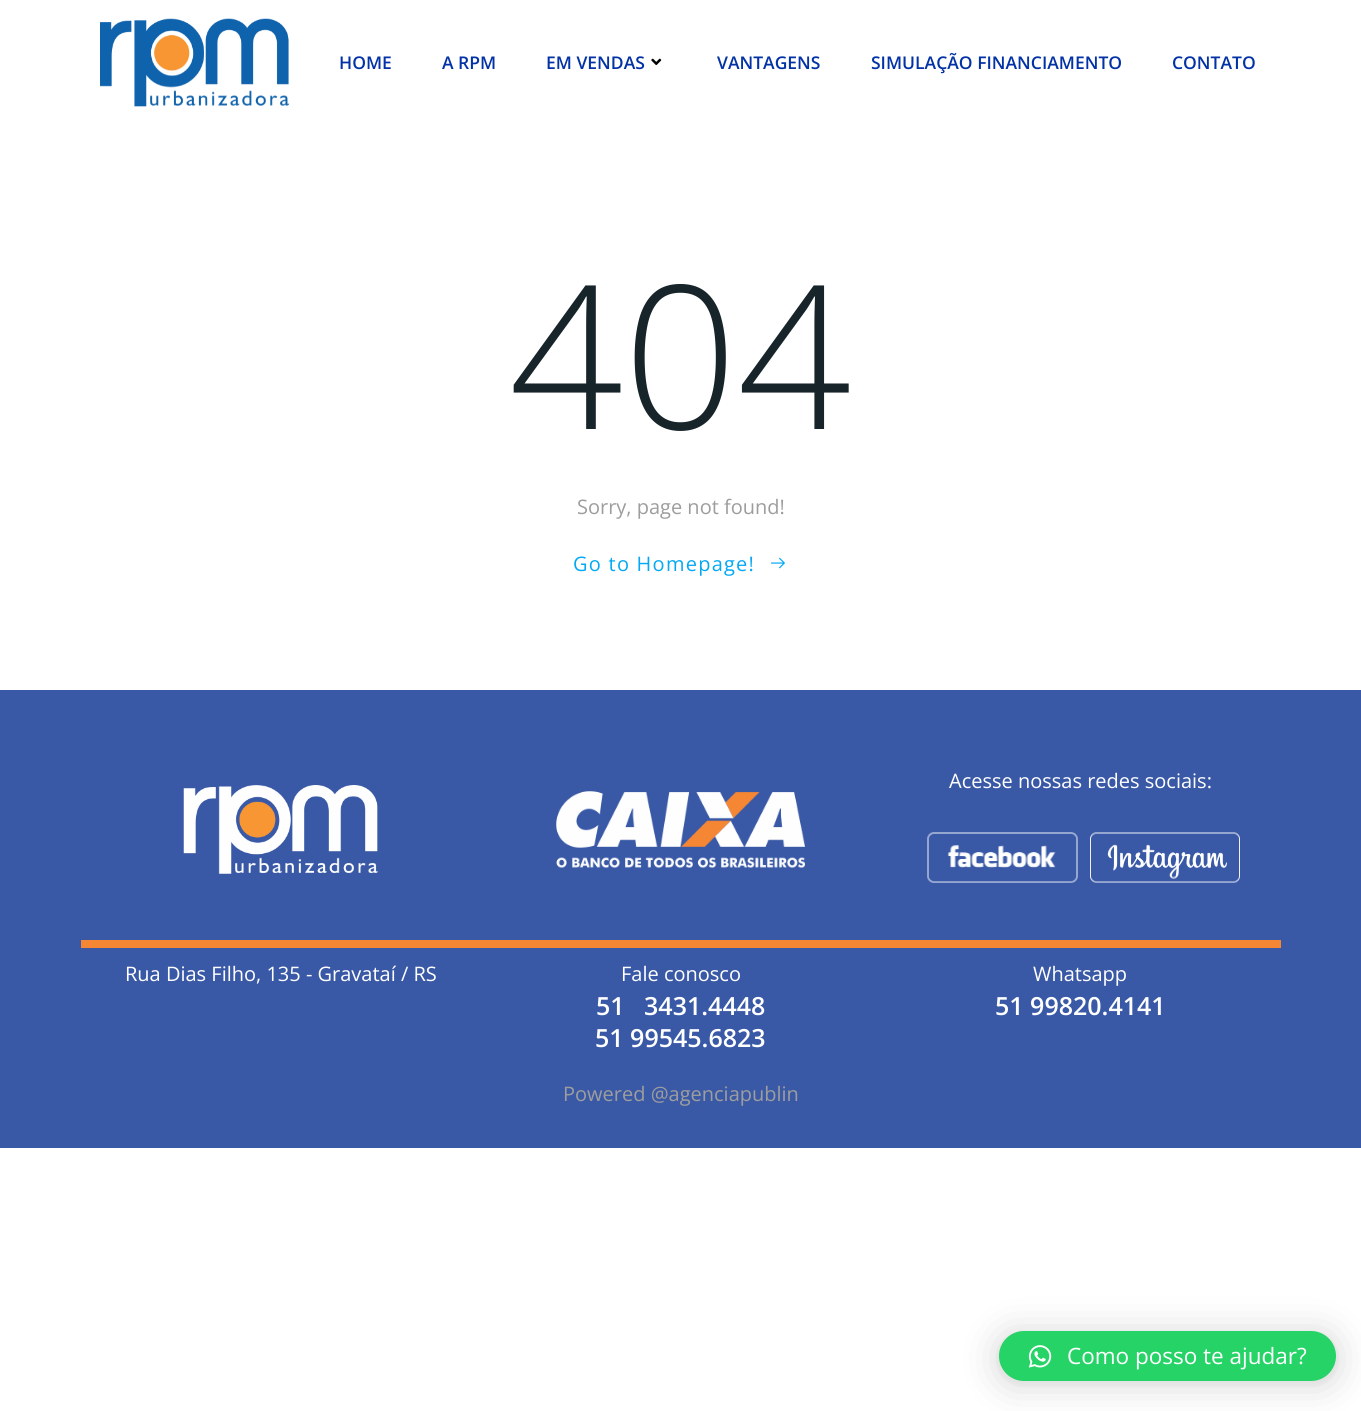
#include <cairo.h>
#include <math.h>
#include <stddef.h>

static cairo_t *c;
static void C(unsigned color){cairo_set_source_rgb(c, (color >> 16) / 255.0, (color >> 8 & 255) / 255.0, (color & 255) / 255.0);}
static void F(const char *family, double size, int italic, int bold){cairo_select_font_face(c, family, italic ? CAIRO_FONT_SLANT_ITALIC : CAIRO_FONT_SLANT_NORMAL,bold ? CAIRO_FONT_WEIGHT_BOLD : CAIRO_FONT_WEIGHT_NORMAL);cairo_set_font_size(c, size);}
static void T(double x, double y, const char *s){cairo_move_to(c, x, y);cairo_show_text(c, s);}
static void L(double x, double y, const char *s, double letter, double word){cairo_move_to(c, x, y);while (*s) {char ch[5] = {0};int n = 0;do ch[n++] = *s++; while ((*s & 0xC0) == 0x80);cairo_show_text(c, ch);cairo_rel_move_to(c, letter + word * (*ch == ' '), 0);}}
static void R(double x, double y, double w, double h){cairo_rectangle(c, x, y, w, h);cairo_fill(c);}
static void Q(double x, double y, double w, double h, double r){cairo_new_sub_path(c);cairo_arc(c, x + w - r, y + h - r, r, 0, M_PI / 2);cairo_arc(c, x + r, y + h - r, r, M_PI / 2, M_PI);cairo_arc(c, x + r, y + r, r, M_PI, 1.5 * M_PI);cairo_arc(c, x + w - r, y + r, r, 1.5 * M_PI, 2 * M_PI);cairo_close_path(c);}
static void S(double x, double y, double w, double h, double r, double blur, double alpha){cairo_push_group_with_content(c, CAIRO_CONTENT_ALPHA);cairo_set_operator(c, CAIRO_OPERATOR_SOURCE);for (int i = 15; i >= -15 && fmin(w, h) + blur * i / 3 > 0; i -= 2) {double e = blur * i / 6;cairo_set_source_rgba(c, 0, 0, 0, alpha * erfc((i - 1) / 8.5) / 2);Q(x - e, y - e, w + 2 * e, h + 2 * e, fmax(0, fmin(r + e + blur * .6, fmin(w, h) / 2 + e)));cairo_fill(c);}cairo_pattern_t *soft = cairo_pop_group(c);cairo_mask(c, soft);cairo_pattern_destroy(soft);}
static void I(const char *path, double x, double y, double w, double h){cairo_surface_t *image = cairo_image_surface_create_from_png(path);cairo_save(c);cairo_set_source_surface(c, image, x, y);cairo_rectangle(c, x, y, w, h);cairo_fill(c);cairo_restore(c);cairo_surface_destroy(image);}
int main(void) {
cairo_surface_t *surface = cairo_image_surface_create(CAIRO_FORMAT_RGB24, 1361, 1411);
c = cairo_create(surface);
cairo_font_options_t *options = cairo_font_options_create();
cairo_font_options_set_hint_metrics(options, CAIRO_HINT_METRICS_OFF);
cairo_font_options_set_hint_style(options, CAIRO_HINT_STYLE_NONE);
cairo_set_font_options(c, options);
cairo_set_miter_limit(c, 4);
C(0xffffff);
cairo_paint(c);
I("1.png",100,18,189,89);
F("Open Sans SemiBold",17.5,0,0);
C(0x0232a6);
T(339,69,"HOME");
T(442,69,"A RPM");
T(546,69,"EM VENDAS");
I("2.png",651,58,11,8);
T(717,69,"VANTAGENS");
T(871,69,"SIMULAÇÃO FINANCIAMENTO");
T(1172,69,"CONTATO");
F("Open Sans Light",200,0,0);
C(0x17252a);
T(509,429,"404");
F("Open Sans",20,0,0);
C(0x9d9d9d);
T(577,514,"Sorry, page not found!");
C(0x03a9f4);
L(573,571,"Go to Homepage!",1.25,0);
I("3.png",771,557,14,12);
C(0x3959a6);
R(0,690,1361,458);
C(0xffffff);
T(949,788,"Acesse nossas redes sociais:");
I("4.png",927,832,151,51);
I("5.png",1090,832,150,51);
I("6.png",183,785,195,89);
I("7.png",556,791,249,77);
C(0xf58634);
R(81,940,1200,8);
C(0xffffff);
T(125,981,"Rua Dias Filho, 135 - Gravataí / RS");
T(621,981,"Fale conosco");
F("Open Sans SemiBold",25,0,0);
T(596,1015,"51   3431.4448");
T(595,1047,"51 99545.6823");
F("Open Sans",20,0,0);
C(0x9d9d9d);
T(563,1101,"Powered @agenciapublin");
C(0xffffff);
T(1033,981,"Whatsapp");
F("Open Sans SemiBold",25,0,0);
T(995,1015,"51 99820.4141");
C(0x000000);
S(999,1334,337,50,25,20,.16);
S(999,1333,337,50,25,4,.06);
C(0x25d366);
Q(999,1331,337,50,25);
cairo_fill(c);
I("8.png",1028,1345,24,23);
F("Open Sans",22.5,0,0);
C(0xffffff);
T(1067,1364,"Como posso te ajudar?");
cairo_surface_write_to_png(surface, "o.png");
cairo_font_options_destroy(options);
cairo_destroy(c);
cairo_surface_destroy(surface);
return 0;
}
